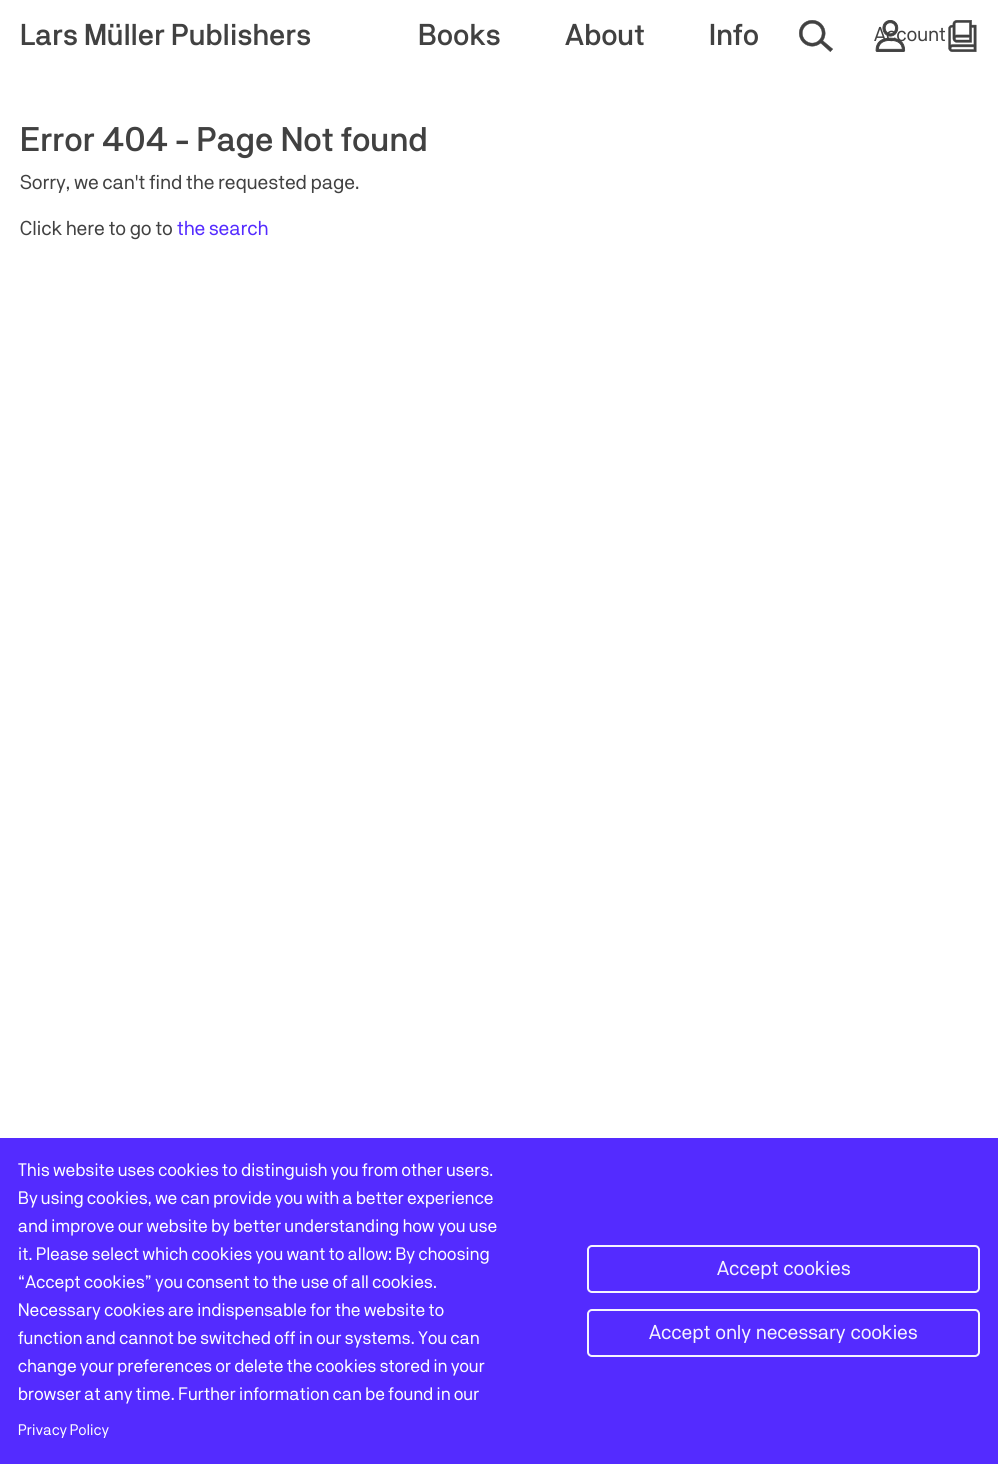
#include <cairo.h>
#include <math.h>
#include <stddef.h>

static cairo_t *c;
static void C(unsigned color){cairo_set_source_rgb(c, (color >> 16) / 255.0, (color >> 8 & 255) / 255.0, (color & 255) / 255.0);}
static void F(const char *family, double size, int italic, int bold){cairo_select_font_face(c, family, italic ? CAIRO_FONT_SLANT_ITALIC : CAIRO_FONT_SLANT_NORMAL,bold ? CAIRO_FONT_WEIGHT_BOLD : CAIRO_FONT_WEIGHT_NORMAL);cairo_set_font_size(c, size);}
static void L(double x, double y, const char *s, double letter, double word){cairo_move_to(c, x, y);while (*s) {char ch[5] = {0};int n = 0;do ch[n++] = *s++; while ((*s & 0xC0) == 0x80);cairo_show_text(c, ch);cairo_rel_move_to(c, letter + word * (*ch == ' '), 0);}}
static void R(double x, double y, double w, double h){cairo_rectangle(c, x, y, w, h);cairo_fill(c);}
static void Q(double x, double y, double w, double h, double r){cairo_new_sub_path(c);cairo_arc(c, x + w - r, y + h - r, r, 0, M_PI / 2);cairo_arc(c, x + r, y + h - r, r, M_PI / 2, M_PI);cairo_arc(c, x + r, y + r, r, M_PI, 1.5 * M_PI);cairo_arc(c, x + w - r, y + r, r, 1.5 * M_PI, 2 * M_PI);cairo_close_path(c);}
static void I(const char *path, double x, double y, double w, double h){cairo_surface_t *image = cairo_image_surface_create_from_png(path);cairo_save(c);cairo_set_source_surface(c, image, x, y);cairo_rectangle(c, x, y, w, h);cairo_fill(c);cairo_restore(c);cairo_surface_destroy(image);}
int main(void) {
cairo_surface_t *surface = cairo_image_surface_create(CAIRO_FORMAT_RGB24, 998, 1464);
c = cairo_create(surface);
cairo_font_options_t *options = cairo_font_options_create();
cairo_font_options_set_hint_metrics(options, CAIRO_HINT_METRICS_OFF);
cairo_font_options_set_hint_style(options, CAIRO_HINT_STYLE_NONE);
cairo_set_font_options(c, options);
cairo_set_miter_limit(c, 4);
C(0xffffff);
cairo_paint(c);
F("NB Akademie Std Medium",30,0,0);
C(0x414141);
L(20,45,"Lars Müller Publishers",.3,-1.25);
C(0x542bff);
R(0,1138,998,326);
F("NB Akademie Std",18,0,0);
C(0xffffff);
L(18,1176,"This website uses cookies to distinguish you from other users.",.3,-1.25);
L(18,1204,"By using cookies, we can provide you with a better experience",.3,-1.25);
L(18,1232,"and improve our website by better understanding how you use",.3,-1.25);
L(18,1260,"it. Please select which cookies you want to allow: By choosing",.3,-1.25);
L(18,1288,"“Accept cookies” you consent to the use of all cookies.",.3,-1.25);
L(18,1316,"Necessary cookies are indispensable for the website to",.3,-1.25);
L(18,1344,"function and cannot be switched off in our systems. You can",.3,-1.25);
L(18,1372,"change your preferences or delete the cookies stored in your",.3,-1.25);
L(18,1400,"browser at any time. Further information can be found in our",.3,-1.25);
F("NB Akademie Std",15.25,0,0);
L(18,1435,"Privacy Policy",.3,-1.25);
Q(588,1246,391,46,4);
C(0xf6f4ff);
cairo_stroke(c);
F("NB Akademie Std",20,0,0);
L(717,1275,"Accept cookies",.3,0);
Q(588,1310,391,46,4);
cairo_stroke(c);
L(649,1339,"Accept only necessary cookies",.3,0);
F("NB Akademie Std Medium",30,0,0);
C(0x414141);
L(418,45,"Books",.3,0);
L(565,45,"About",.3,0);
L(709,45,"Info",.3,0);
I("1.png",799,20,34,32);
I("2.png",875,20,31,32);
F("NB Akademie Std",20,0,0);
L(874,41,"Account",.3,0);
I("3.png",948,20,29,32);
F("NB Akademie Std Medium",34,0,0);
L(20,151,"Error 404 - Page Not found",.3,-1.25);
F("NB Akademie Std",20,0,0);
L(20,189,"Sorry, we can't find the requested page.",.3,-1.25);
L(20,235,"Click here to go to",.3,-1.25);
C(0x542bff);
L(177,235,"the",.3,0);
L(209,235,"search",.3,0);
cairo_surface_write_to_png(surface, "o.png");
cairo_font_options_destroy(options);
cairo_destroy(c);
cairo_surface_destroy(surface);
return 0;
}
